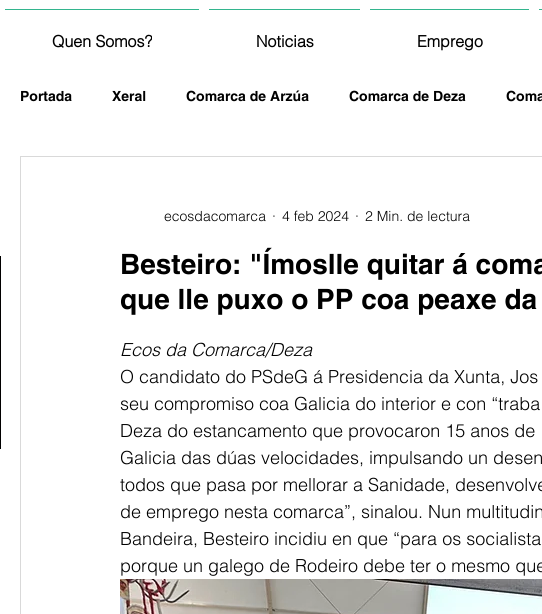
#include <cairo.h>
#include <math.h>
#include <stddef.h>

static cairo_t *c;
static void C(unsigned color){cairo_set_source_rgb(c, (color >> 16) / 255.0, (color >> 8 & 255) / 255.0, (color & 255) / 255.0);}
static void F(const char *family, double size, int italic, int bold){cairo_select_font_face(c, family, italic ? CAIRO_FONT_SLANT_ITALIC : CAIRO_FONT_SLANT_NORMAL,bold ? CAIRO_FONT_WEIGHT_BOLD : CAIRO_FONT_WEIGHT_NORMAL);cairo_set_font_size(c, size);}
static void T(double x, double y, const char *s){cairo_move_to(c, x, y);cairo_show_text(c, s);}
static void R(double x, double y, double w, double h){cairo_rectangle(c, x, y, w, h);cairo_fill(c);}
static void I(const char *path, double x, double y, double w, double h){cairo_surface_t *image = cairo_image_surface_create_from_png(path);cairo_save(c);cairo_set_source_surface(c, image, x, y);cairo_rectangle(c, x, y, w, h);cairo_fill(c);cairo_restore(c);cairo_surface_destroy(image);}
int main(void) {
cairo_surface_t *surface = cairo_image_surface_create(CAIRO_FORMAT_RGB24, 542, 614);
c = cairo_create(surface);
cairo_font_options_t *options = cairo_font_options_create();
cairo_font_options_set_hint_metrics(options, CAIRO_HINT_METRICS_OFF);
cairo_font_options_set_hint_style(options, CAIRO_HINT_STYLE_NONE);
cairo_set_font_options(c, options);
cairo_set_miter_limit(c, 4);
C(0xffffff);
cairo_paint(c);
C(0x33b58e);
R(539,9,3,1);
R(5,9,194,1);
F("helvetica",16,0,1);
C(0x000000);
T(52,47,"Quen Somos?");
C(0x33b58e);
R(209,9,151,1);
C(0x000000);
T(256,47,"Noticias");
C(0x33b58e);
R(370,9,159,1);
C(0x000000);
T(417,47,"Emprego");
C(0x010000);
R(0,256,1,193);
F("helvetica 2",14,0,1);
C(0x000000);
T(20,101,"Portada");
T(112,101,"Xeral");
T(186,101,"Comarca de Arzúa");
T(349,101,"Comarca de Deza");
T(506,101,"Coma");
cairo_rectangle(c,20.5,156.5,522,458);
C(0xd9d9d9);
cairo_set_line_width(c,1);
cairo_stroke(c);
F("helvetica Light",14,0,0);
C(0x000000);
T(164,221,"ecosdacomarca");
T(272,221,"·");
T(282,221,"4 feb 2024");
T(355,221,"·");
T(365,221,"2 Min. de lectura");
F("helvetica 2",28,0,1);
T(120,274,"Besteiro: \"Ímoslle quitar á coma");
T(120,309,"que lle puxo o PP coa peaxe da");
F("helvetica Light",18,1,0);
T(120,356,"Ecos da Comarca/Deza");
F("helvetica Light",18,0,0);
T(120,383,"O candidato do PSdeG á Presidencia da Xunta, Jos");
T(120,410,"seu compromiso coa Galicia do interior e con “traba");
T(120,437,"Deza do estancamento que provocaron 15 anos de");
T(120,464,"Galicia das dúas velocidades, impulsando un desen");
T(120,491,"todos que pasa por mellorar a Sanidade, desenvolve");
T(120,518,"de emprego nesta comarca”, sinalou. Nun multitudin");
T(120,545,"Bandeira, Besteiro incidiu en que “para os socialista");
T(120,572,"porque un galego de Rodeiro debe ter o mesmo que");
I("1.png",120,579,422,35);
cairo_surface_write_to_png(surface, "o.png");
cairo_font_options_destroy(options);
cairo_destroy(c);
cairo_surface_destroy(surface);
return 0;
}
